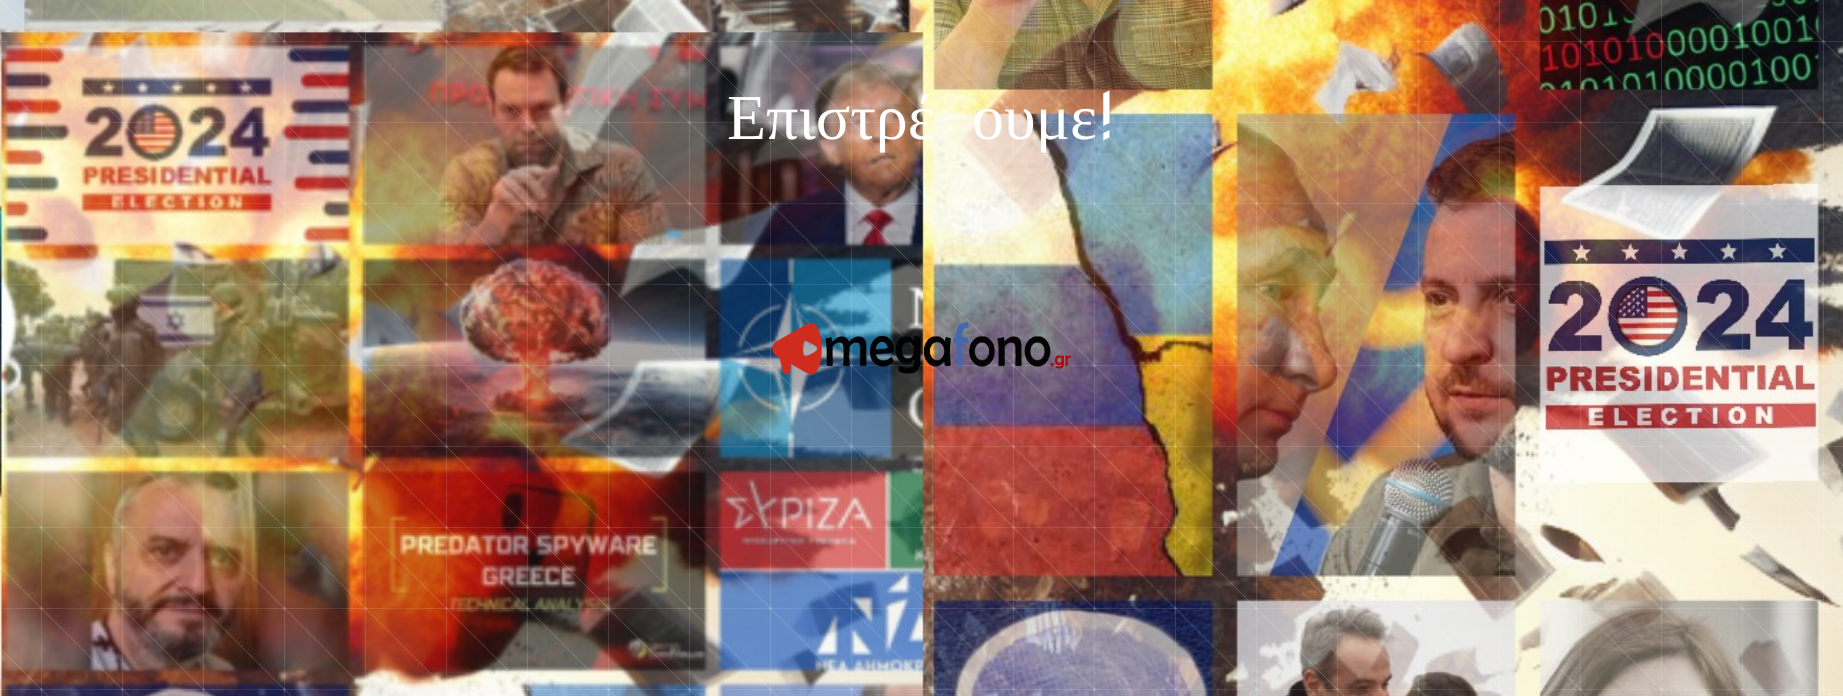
#include <cairo.h>
#include <math.h>
#include <stddef.h>

static cairo_t *c;
static void C(unsigned color){cairo_set_source_rgb(c, (color >> 16) / 255.0, (color >> 8 & 255) / 255.0, (color & 255) / 255.0);}
static void F(const char *family, double size, int italic, int bold){cairo_select_font_face(c, family, italic ? CAIRO_FONT_SLANT_ITALIC : CAIRO_FONT_SLANT_NORMAL,bold ? CAIRO_FONT_WEIGHT_BOLD : CAIRO_FONT_WEIGHT_NORMAL);cairo_set_font_size(c, size);}
static void T(double x, double y, const char *s){cairo_move_to(c, x, y);cairo_show_text(c, s);}
static void I(const char *path, double x, double y, double w, double h){cairo_surface_t *image = cairo_image_surface_create_from_png(path);cairo_save(c);cairo_set_source_surface(c, image, x, y);cairo_rectangle(c, x, y, w, h);cairo_fill(c);cairo_restore(c);cairo_surface_destroy(image);}
int main(void) {
cairo_surface_t *surface = cairo_image_surface_create(CAIRO_FORMAT_RGB24, 1843, 696);
c = cairo_create(surface);
cairo_font_options_t *options = cairo_font_options_create();
cairo_font_options_set_hint_metrics(options, CAIRO_HINT_METRICS_OFF);
cairo_font_options_set_hint_style(options, CAIRO_HINT_STYLE_NONE);
cairo_set_font_options(c, options);
cairo_set_miter_limit(c, 4);
C(0xffffff);
cairo_paint(c);
I("1.png",0,0,1843,696);
I("2.png",0,0,1843,696);
F("Liberation Serif",64,0,0);
C(0xffffff);
T(727,139,"Επιστρέ");
T(972,139,"ουμε");
F("Nova Cut",64,0,0);
T(1097,139,"!");
I("3.png",772,322,299,53);
cairo_surface_write_to_png(surface, "o.png");
cairo_font_options_destroy(options);
cairo_destroy(c);
cairo_surface_destroy(surface);
return 0;
}
